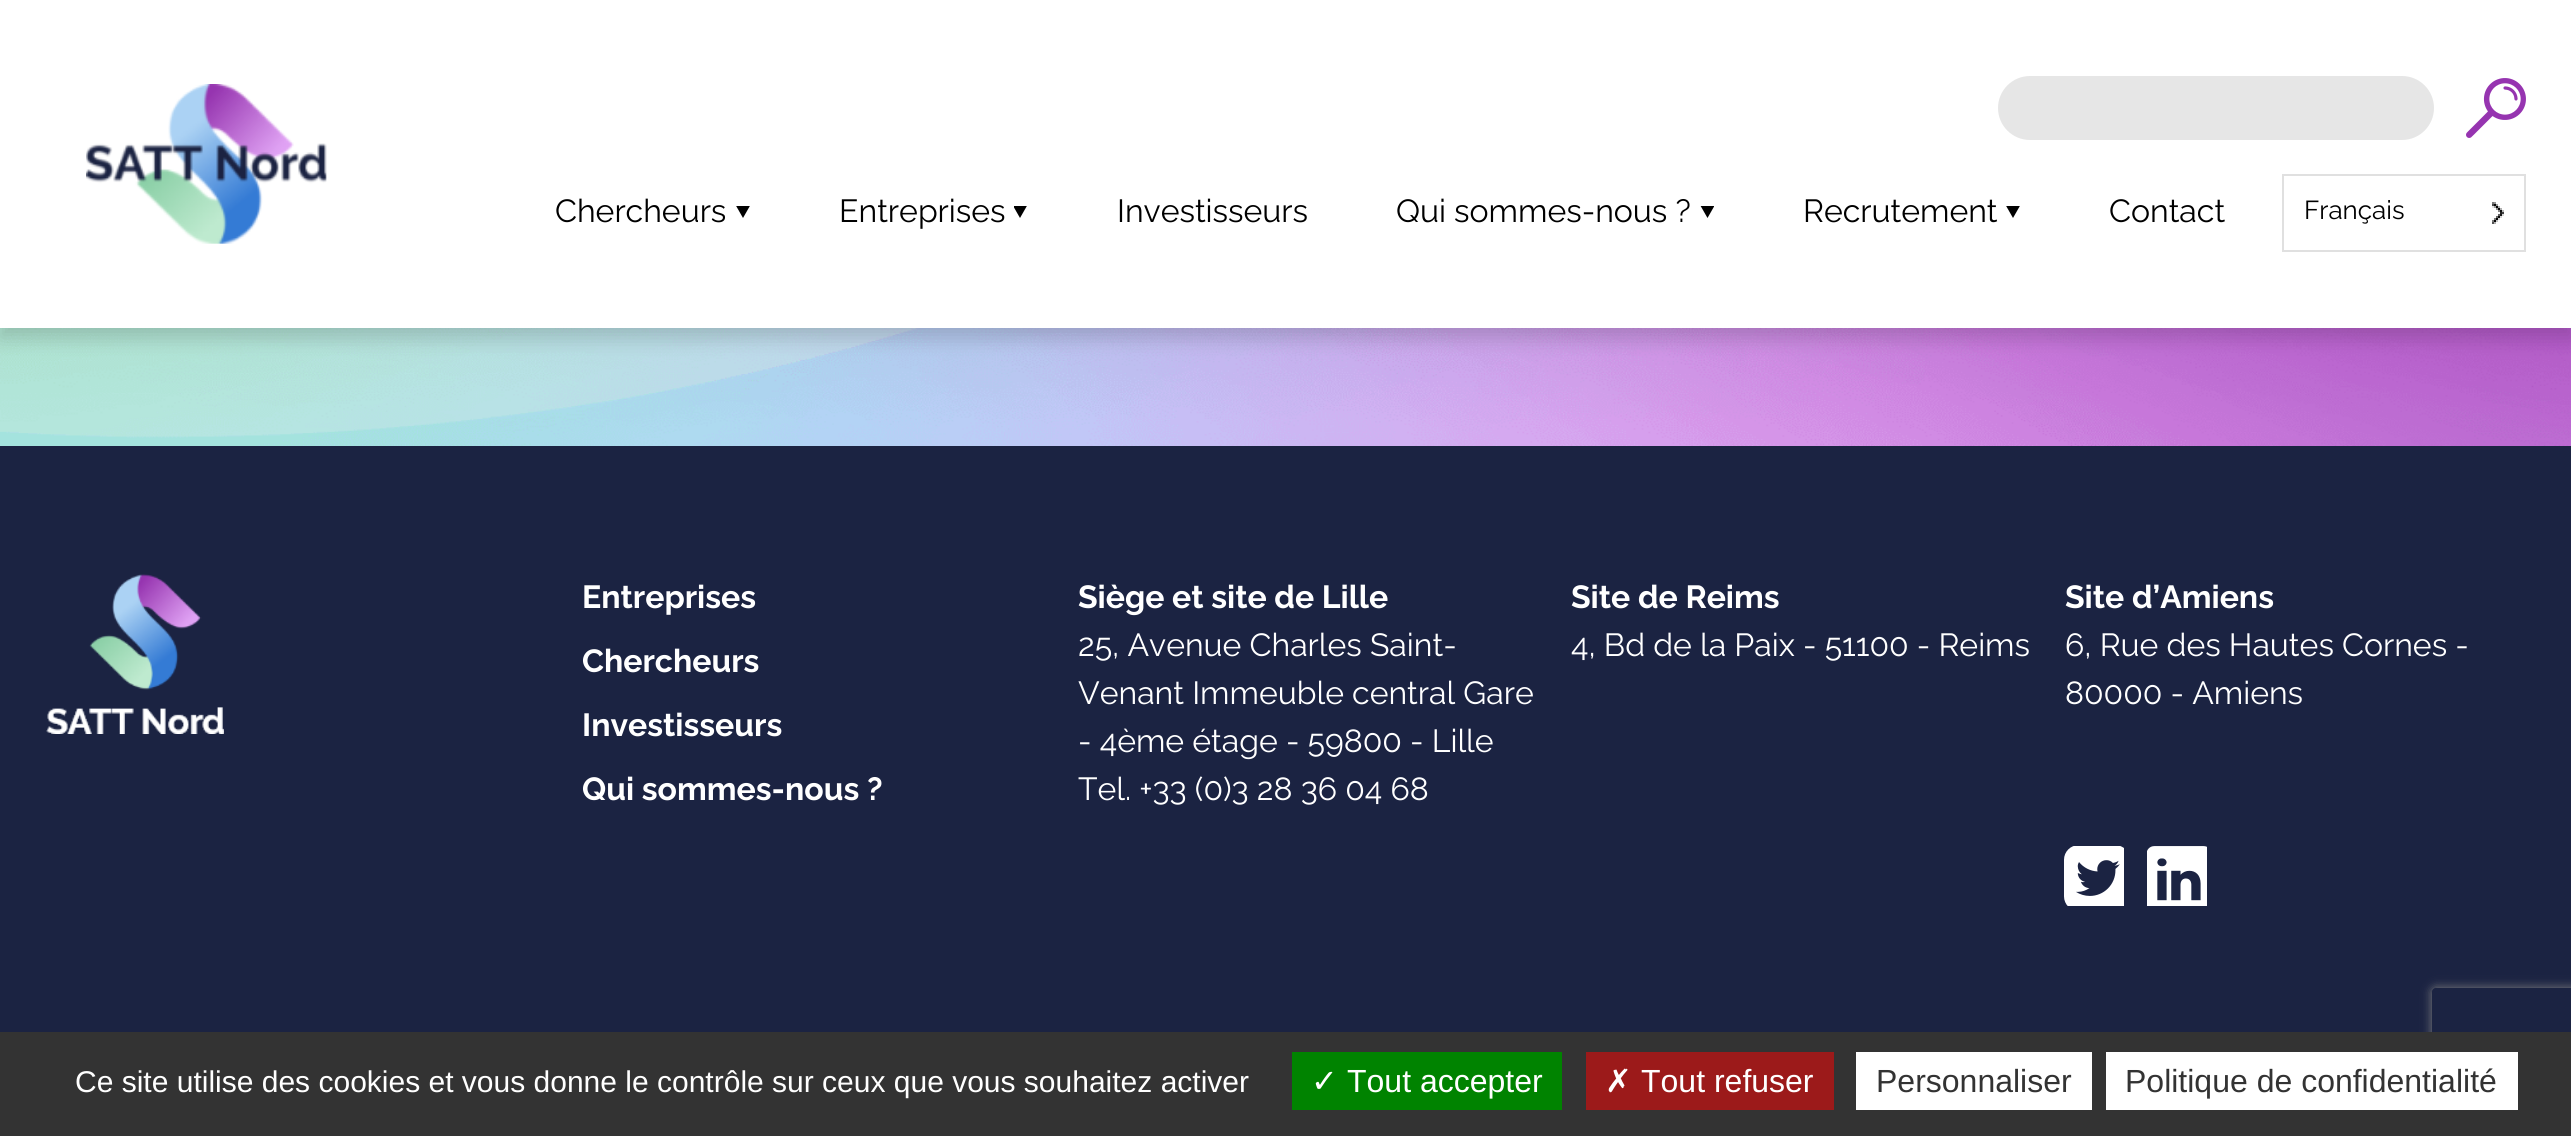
#include <cairo.h>
#include <math.h>
#include <stddef.h>

static cairo_t *c;
static void C(unsigned color){cairo_set_source_rgb(c, (color >> 16) / 255.0, (color >> 8 & 255) / 255.0, (color & 255) / 255.0);}
static void F(const char *family, double size, int italic, int bold){cairo_select_font_face(c, family, italic ? CAIRO_FONT_SLANT_ITALIC : CAIRO_FONT_SLANT_NORMAL,bold ? CAIRO_FONT_WEIGHT_BOLD : CAIRO_FONT_WEIGHT_NORMAL);cairo_set_font_size(c, size);}
static void T(double x, double y, const char *s){cairo_move_to(c, x, y);cairo_show_text(c, s);}
static void R(double x, double y, double w, double h){cairo_rectangle(c, x, y, w, h);cairo_fill(c);}
static void Q(double x, double y, double w, double h, double r){cairo_new_sub_path(c);cairo_arc(c, x + w - r, y + h - r, r, 0, M_PI / 2);cairo_arc(c, x + r, y + h - r, r, M_PI / 2, M_PI);cairo_arc(c, x + r, y + r, r, M_PI, 1.5 * M_PI);cairo_arc(c, x + w - r, y + r, r, 1.5 * M_PI, 2 * M_PI);cairo_close_path(c);}
static void S(double x, double y, double w, double h, double r, double blur, double alpha){cairo_push_group_with_content(c, CAIRO_CONTENT_ALPHA);cairo_set_operator(c, CAIRO_OPERATOR_SOURCE);for (int i = 15; i >= -15 && fmin(w, h) + blur * i / 3 > 0; i -= 2) {double e = blur * i / 6;cairo_set_source_rgba(c, 0, 0, 0, alpha * erfc((i - 1) / 8.5) / 2);Q(x - e, y - e, w + 2 * e, h + 2 * e, fmax(0, fmin(r + e + blur * .6, fmin(w, h) / 2 + e)));cairo_fill(c);}cairo_pattern_t *soft = cairo_pop_group(c);cairo_mask(c, soft);cairo_pattern_destroy(soft);}
static void I(const char *path, double x, double y, double w, double h){cairo_surface_t *image = cairo_image_surface_create_from_png(path);cairo_save(c);cairo_set_source_surface(c, image, x, y);cairo_rectangle(c, x, y, w, h);cairo_fill(c);cairo_restore(c);cairo_surface_destroy(image);}
int main(void) {
cairo_surface_t *surface = cairo_image_surface_create(CAIRO_FORMAT_RGB24, 2571, 1136);
c = cairo_create(surface);
cairo_font_options_t *options = cairo_font_options_create();
cairo_font_options_set_hint_metrics(options, CAIRO_HINT_METRICS_OFF);
cairo_font_options_set_hint_style(options, CAIRO_HINT_STYLE_NONE);
cairo_set_font_options(c, options);
cairo_set_miter_limit(c, 4);
C(0xffffff);
cairo_paint(c);
I("4.png",0,328,2571,118);
C(0x000000);
S(0,10,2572,328,0,10,.16);
C(0xffffff);
R(0,0,2571,328);
I("1.png",86,84,241,160);
C(0xe6e6e6);
Q(1998,76,436,64,32);
cairo_fill(c);
I("2.png",2466,78,60,60);
F("Raleway",32,0,0);
C(0x000000);
T(555,222,"Chercheurs");
cairo_save(c);
cairo_rectangle(c,734,206,16,14);
cairo_clip(c);
cairo_new_path(c);
cairo_move_to(c,743,218);
cairo_line_to(c,735,204);
cairo_line_to(c,751,204);
cairo_close_path(c);
cairo_fill(c);
cairo_restore(c);
T(839,222,"Entreprises");
cairo_save(c);
cairo_rectangle(c,1014,206,16,14);
cairo_clip(c);
cairo_new_path(c);
cairo_move_to(c,1020,218);
cairo_line_to(c,1012,204);
cairo_line_to(c,1028,204);
cairo_close_path(c);
cairo_fill(c);
cairo_restore(c);
T(1117,222,"Investisseurs");
T(1396,222,"Qui sommes-nous ?");
cairo_save(c);
cairo_rectangle(c,1698,206,16,14);
cairo_clip(c);
cairo_new_path(c);
cairo_move_to(c,1707.5,218);
cairo_line_to(c,1699.5,204);
cairo_line_to(c,1715.5,204);
cairo_close_path(c);
cairo_fill(c);
cairo_restore(c);
T(1803,222,"Recrutement");
cairo_save(c);
cairo_rectangle(c,2006,206,16,14);
cairo_clip(c);
cairo_new_path(c);
cairo_move_to(c,2013,218);
cairo_line_to(c,2005,204);
cairo_line_to(c,2021,204);
cairo_close_path(c);
cairo_fill(c);
cairo_restore(c);
T(2109,222,"Contact");
cairo_rectangle(c,2283,175,242,76);
C(0xe0e0e0);
cairo_stroke(c);
F("Raleway",26,0,0);
C(0x000000);
T(2304,219,"Français");
I("3.png",2492,202,12,22);
C(0x1b2342);
R(0,446,2571,586);
I("5.png",46,574,178,160);
F("Raleway",32,0,1);
C(0xffffff);
T(582,608,"Entreprises");
T(582,672,"Chercheurs");
T(582,736,"Investisseurs");
T(582,800,"Qui sommes-nous ?");
T(1078,608,"Siège et site de Lille");
F("Raleway",32,0,0);
T(1078,656,"25, Avenue Charles Saint-");
T(1078,704,"Venant Immeuble central Gare");
T(1078,752,"- 4ème étage - 59800 - Lille");
T(1078,800,"Tel. +33 (0)3 28 36 04 68");
F("Raleway",32,0,1);
T(1571,608,"Site de Reims");
F("Raleway",32,0,0);
T(1571,656,"4, Bd de la Paix - 51100 - Reims");
F("Raleway",32,0,1);
T(2065,608,"Site d’Amiens");
F("Raleway",32,0,0);
T(2065,656,"6, Rue des Hautes Cornes -");
T(2065,704,"80000 - Amiens");
I("6.png",2064,846,60,60);
I("7.png",2147,846,60,60);
cairo_save(c);
cairo_set_fill_rule(c,CAIRO_FILL_RULE_EVEN_ODD);
cairo_new_path(c);
cairo_move_to(c,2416,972);
cairo_line_to(c,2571,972);
cairo_line_to(c,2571,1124);
cairo_line_to(c,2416,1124);
cairo_close_path(c);
cairo_move_to(c,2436,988);
cairo_line_to(c,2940,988);
cairo_curve_to(c,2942,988,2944,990,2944,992);
cairo_line_to(c,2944,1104);
cairo_curve_to(c,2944,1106,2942,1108,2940,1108);
cairo_line_to(c,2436,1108);
cairo_curve_to(c,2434,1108,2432,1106,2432,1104);
cairo_line_to(c,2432,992);
cairo_curve_to(c,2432,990,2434,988,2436,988);
cairo_close_path(c);
cairo_clip(c);
C(0x808080);
S(2432,988,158,120,4,5,1);
cairo_restore(c);
C(0x333333);
R(0,1032,2571,104);
F("Liberation Sans",30,0,0);
C(0xffffff);
T(75,1092,"Ce site utilise des cookies et vous donne le contrôle sur ceux que vous souhaitez activer");
C(0x008300);
R(1292,1052,270,58);
F("DejaVu Sans",32,0,0);
C(0xffffff);
T(1311,1092,"✓");
F("Liberation Sans",32,0,0);
T(1347,1092,"Tout accepter");
C(0x9c1a1a);
R(1586,1052,248,58);
F("DejaVu Sans",32,0,0);
C(0xffffff);
T(1605,1092,"✗");
F("Liberation Sans",32,0,0);
T(1641,1092,"Tout refuser");
R(1856,1052,236,58);
C(0x333333);
T(1876,1092,"Personnaliser");
C(0xffffff);
R(2106,1052,412,58);
C(0x333333);
T(2125,1092,"Politique de confidentialité");
cairo_surface_write_to_png(surface, "o.png");
cairo_font_options_destroy(options);
cairo_destroy(c);
cairo_surface_destroy(surface);
return 0;
}
